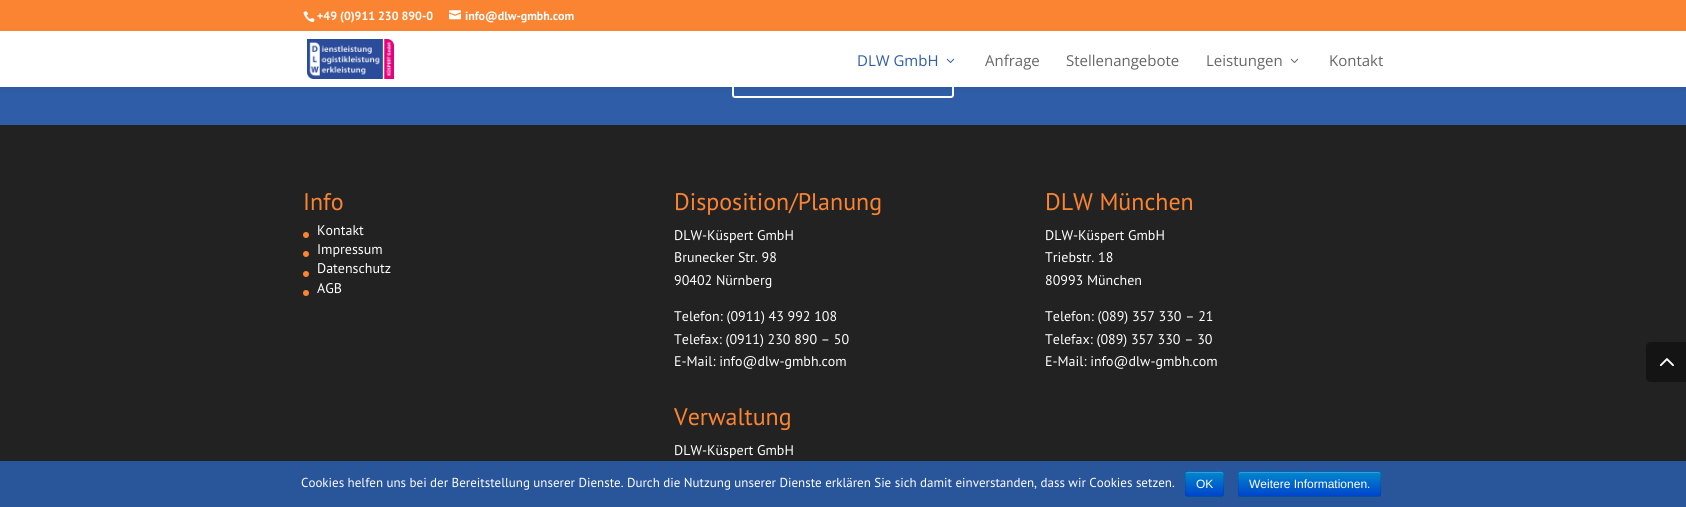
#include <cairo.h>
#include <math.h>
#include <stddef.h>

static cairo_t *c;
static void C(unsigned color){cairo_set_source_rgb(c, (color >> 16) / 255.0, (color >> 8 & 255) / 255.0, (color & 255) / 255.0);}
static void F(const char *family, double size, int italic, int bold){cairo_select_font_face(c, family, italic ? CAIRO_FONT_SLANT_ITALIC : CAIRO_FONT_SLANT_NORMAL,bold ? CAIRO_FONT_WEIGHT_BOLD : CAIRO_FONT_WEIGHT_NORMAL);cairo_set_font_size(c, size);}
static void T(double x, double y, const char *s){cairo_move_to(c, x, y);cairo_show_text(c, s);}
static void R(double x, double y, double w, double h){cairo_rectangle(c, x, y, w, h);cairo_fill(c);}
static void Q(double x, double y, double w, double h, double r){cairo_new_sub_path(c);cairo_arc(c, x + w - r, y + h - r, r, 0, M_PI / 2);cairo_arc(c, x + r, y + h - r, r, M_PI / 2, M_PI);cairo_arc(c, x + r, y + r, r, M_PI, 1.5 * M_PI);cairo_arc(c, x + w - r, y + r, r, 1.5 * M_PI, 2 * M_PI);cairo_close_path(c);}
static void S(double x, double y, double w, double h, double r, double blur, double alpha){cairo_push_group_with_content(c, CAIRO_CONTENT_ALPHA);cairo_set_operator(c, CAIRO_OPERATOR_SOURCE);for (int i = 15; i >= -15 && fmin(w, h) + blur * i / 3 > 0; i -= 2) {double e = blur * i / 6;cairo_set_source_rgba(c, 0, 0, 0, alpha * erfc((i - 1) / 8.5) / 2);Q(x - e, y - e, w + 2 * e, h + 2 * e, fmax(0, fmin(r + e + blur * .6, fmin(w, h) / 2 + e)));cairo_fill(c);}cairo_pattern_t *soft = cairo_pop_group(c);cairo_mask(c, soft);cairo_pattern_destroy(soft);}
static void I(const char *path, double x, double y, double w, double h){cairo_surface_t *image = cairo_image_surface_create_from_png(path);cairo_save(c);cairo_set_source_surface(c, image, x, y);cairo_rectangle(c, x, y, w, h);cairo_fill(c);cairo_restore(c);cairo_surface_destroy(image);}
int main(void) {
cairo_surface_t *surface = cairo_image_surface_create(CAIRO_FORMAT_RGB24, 1686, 507);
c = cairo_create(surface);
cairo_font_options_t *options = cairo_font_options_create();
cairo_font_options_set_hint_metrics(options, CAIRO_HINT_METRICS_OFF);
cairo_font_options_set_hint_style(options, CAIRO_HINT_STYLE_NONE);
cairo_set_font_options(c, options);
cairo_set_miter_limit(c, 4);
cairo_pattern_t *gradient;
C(0x222222);
cairo_paint(c);
C(0x2f5da7);
R(0,87,1686,38);
Q(733,49,220,48,2);
C(0xffffff);
cairo_stroke(c);
C(0x000000);
S(0,31,1686,56,0,3.5,.1);
C(0xfb8433);
R(0,0,1686,31);
I("1.png",303,11,12,12);
F("PT Sans",12,0,1);
C(0xffffff);
T(317,20,"+49 (0)911 230 890-0");
I("2.png",449,10,12,10);
T(465,20,"info@dlw-gmbh.com");
R(0,31,1686,56);
I("3.png",307,39,87,40);
F("Open Sans",15,0,0);
C(0x2f5da7);
T(857,66,"DLW GmbH");
I("4.png",946,58,9,5);
C(0x666666);
T(985,66,"Anfrage");
T(1066,66,"Stellenangebote");
T(1206,66,"Leistungen");
I("5.png",1290,58,9,5);
T(1329,66,"Kontakt");
F("PT Sans",24,0,0);
C(0xfb8433);
T(303,210,"Info");
cairo_new_path(c);
cairo_arc(c,306,235,3,0,2 * M_PI);
cairo_fill(c);
F("PT Sans",14,0,0);
C(0xffffff);
T(317,235,"Kontakt");
C(0xfb8433);
cairo_new_path(c);
cairo_arc(c,306,254,3,0,2 * M_PI);
cairo_fill(c);
C(0xffffff);
T(317,254,"Impressum");
C(0xfb8433);
cairo_new_path(c);
cairo_arc(c,306,274,3,0,2 * M_PI);
cairo_fill(c);
C(0xffffff);
T(317,273,"Datenschutz");
C(0xfb8433);
cairo_new_path(c);
cairo_arc(c,306,293,3,0,2 * M_PI);
cairo_fill(c);
C(0xffffff);
T(317,293,"AGB");
F("PT Sans",24,0,0);
C(0xfb8433);
T(674,210,"Disposition/Planung");
F("PT Sans",14,0,0);
C(0xffffff);
T(674,240,"DLW-Küspert GmbH");
T(674,262,"Brunecker Str. 98");
T(674,285,"90402 Nürnberg");
T(674,321,"Telefon: (0911) 43 992 108");
T(674,344,"Telefax: (0911) 230 890 – 50");
T(674,366,"E-Mail: info@dlw-gmbh.com");
F("PT Sans",24,0,0);
C(0xfb8433);
T(674,425,"Verwaltung");
F("PT Sans",14,0,0);
C(0xffffff);
T(674,455,"DLW-Küspert GmbH");
F("PT Sans",24,0,0);
C(0xfb8433);
T(1045,210,"DLW München");
F("PT Sans",14,0,0);
C(0xffffff);
T(1045,240,"DLW-Küspert GmbH");
T(1045,262,"Triebstr. 18");
T(1045,285,"80993 München");
T(1045,321,"Telefon: (089) 357 330 – 21");
T(1045,344,"Telefax: (089) 357 330 – 30");
T(1045,366,"E-Mail: info@dlw-gmbh.com");
C(0x141414);
cairo_new_path(c);
cairo_move_to(c,1651,342);
cairo_line_to(c,1686,342);
cairo_line_to(c,1686,382);
cairo_line_to(c,1651,382);
cairo_curve_to(c,1648,382,1646,380,1646,377);
cairo_line_to(c,1646,347);
cairo_curve_to(c,1646,344,1648,342,1651,342);
cairo_close_path(c);
cairo_fill(c);
I("6.png",1659,358,15,9);
C(0x29559b);
R(0,461,1686,46);
F("PT Sans",13,0,0);
C(0xffffff);
T(301,487,"Cookies helfen uns bei der Bereitstellung unserer Dienste. Durch die Nutzung unserer Dienste erklären Sie sich damit einverstanden, dass wir Cookies setzen.");
C(0x006dcc);
Q(1185,471,39,26,3);
cairo_fill(c);
cairo_save(c);
Q(1185,471,39,26,3);
cairo_clip(c);
gradient = cairo_pattern_create_linear(1205,472,1205,496);
cairo_pattern_add_color_stop_rgba(gradient,0,0,0.533,0.8,1);
cairo_pattern_add_color_stop_rgba(gradient,1,0,0.267,0.8,1);
cairo_set_source(c,gradient);
cairo_pattern_destroy(gradient);
R(1185,472,39,24);
cairo_restore(c);
cairo_set_source_rgba(c,1,1,1,0.2);
cairo_new_path(c);
cairo_move_to(c,1188,473);
cairo_line_to(c,1221,473);
cairo_curve_to(c,1222,473,1223,474,1223,475);
cairo_curve_to(c,1223,470.5,1219.5,472,1215.5,472);
cairo_line_to(c,1193.5,472);
cairo_curve_to(c,1189.5,472,1186,470.5,1186,475);
cairo_curve_to(c,1186,474,1187,473,1188,473);
cairo_close_path(c);
cairo_fill(c);
cairo_new_path(c);
cairo_move_to(c,1223,496);
cairo_curve_to(c,1222.5,496,1221.5,496.5,1221,496.5);
cairo_line_to(c,1188,496.5);
cairo_curve_to(c,1187.5,496.5,1186.5,496,1186,496);
cairo_set_source_rgba(c,0,0,0,0.25);
cairo_set_line_width(c,1);
cairo_stroke(c);
cairo_new_path(c);
cairo_move_to(c,1186,496);
cairo_curve_to(c,1186,495.5,1185.5,494.5,1185.5,494);
cairo_line_to(c,1185.5,474);
cairo_curve_to(c,1185.5,473.5,1186,472.5,1186,472);
cairo_curve_to(c,1186.5,472,1187.5,471.5,1188,471.5);
cairo_line_to(c,1221,471.5);
cairo_curve_to(c,1221.5,471.5,1222.5,472,1223,472);
cairo_curve_to(c,1223,472.5,1223.5,473.5,1223.5,474);
cairo_line_to(c,1223.5,494);
cairo_curve_to(c,1223.5,494.5,1223,495.5,1223,496);
cairo_set_source_rgba(c,0,0,0,0.1);
cairo_stroke(c);
F("Liberation Sans",12,0,0);
C(0xffffff);
T(1196,488,"OK");
C(0x006dcc);
Q(1238,471,143,26,3);
cairo_fill(c);
cairo_save(c);
Q(1238,471,143,26,3);
cairo_clip(c);
gradient = cairo_pattern_create_linear(1310,472,1310,496);
cairo_pattern_add_color_stop_rgba(gradient,0,0,0.533,0.8,1);
cairo_pattern_add_color_stop_rgba(gradient,1,0,0.267,0.8,1);
cairo_set_source(c,gradient);
cairo_pattern_destroy(gradient);
R(1238,472,143,24);
cairo_restore(c);
cairo_set_source_rgba(c,1,1,1,0.2);
cairo_new_path(c);
cairo_move_to(c,1241,473);
cairo_line_to(c,1378,473);
cairo_curve_to(c,1379,473,1380,474,1380,475);
cairo_curve_to(c,1380,474,1380,473,1379,472);
cairo_line_to(c,1241,472);
cairo_line_to(c,1239,473);
cairo_line_to(c,1239,475);
cairo_curve_to(c,1239,474,1240,473,1241,473);
cairo_close_path(c);
cairo_fill(c);
cairo_new_path(c);
cairo_move_to(c,1380,496);
cairo_line_to(c,1378,496.5);
cairo_line_to(c,1241,496.5);
cairo_line_to(c,1239,496);
cairo_set_source_rgba(c,0,0,0,0.25);
cairo_stroke(c);
cairo_new_path(c);
cairo_move_to(c,1239,496);
cairo_curve_to(c,1237.5,494,1238.5,486.5,1238.5,484);
cairo_line_to(c,1238.5,477.5);
cairo_curve_to(c,1238.5,475.5,1238,471.5,1241,471.5);
cairo_line_to(c,1378,471.5);
cairo_curve_to(c,1381,471.5,1380.5,475.5,1380.5,477.5);
cairo_line_to(c,1380.5,484);
cairo_curve_to(c,1380.5,486.5,1381.5,494,1380,496);
cairo_set_source_rgba(c,0,0,0,0.1);
cairo_stroke(c);
C(0xffffff);
T(1249,488,"Weitere Informationen.");
cairo_surface_write_to_png(surface, "o.png");
cairo_font_options_destroy(options);
cairo_destroy(c);
cairo_surface_destroy(surface);
return 0;
}
